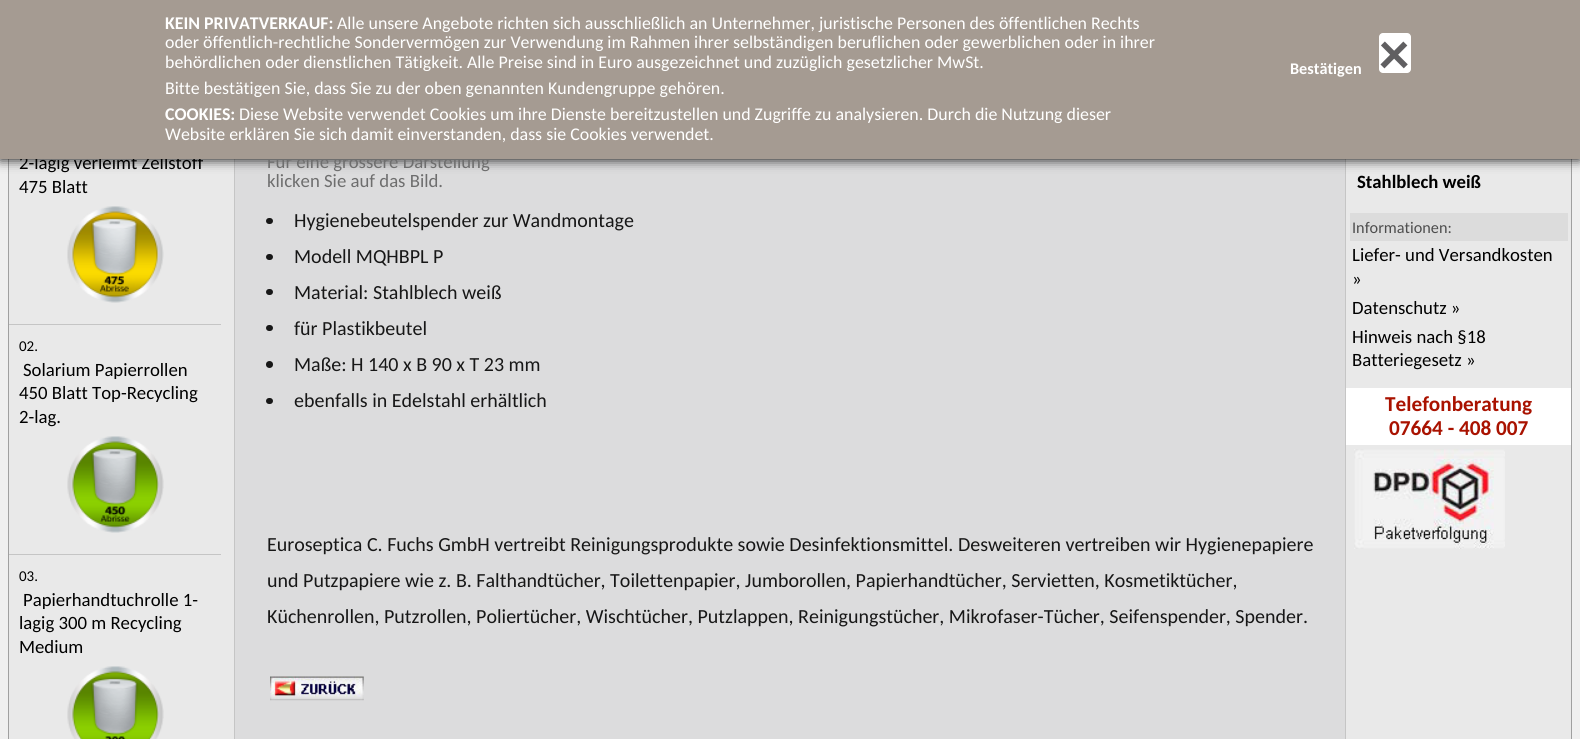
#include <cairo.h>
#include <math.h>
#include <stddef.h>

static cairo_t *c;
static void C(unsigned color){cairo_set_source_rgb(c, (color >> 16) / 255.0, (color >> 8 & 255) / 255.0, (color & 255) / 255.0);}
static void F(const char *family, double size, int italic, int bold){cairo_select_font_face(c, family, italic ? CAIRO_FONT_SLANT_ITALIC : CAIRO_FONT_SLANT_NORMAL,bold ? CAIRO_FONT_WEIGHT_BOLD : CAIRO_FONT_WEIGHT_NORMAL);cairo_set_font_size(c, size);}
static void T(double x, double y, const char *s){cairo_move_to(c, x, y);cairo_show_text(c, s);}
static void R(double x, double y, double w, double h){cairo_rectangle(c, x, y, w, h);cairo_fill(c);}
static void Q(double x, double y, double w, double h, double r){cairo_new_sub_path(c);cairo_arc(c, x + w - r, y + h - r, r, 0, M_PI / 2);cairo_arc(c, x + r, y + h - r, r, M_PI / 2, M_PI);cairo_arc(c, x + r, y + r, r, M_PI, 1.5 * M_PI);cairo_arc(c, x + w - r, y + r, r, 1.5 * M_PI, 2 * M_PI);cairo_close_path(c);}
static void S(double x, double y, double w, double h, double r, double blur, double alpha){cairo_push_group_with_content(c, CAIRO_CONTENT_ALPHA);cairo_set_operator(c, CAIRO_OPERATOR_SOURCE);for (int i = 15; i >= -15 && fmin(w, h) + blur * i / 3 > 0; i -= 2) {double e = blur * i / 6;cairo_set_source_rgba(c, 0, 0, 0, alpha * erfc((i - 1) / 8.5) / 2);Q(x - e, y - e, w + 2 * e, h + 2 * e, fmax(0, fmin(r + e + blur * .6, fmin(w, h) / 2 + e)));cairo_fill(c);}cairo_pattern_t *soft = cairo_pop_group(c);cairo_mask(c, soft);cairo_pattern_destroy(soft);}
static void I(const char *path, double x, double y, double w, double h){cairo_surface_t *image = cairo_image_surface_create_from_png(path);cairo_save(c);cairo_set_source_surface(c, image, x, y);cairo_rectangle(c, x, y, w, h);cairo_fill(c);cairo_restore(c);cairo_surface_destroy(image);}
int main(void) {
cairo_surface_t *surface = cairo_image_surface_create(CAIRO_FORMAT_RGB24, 1580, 739);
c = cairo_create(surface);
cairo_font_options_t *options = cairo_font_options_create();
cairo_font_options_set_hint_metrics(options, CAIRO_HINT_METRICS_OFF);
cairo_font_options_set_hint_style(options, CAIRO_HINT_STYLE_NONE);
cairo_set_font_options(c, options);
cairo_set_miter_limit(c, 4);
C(0xf0f0f0);
cairo_paint(c);
C(0xe9e9e9);
R(9,159,225,580);
C(0xc5c5c5);
R(234,159,1,580);
C(0xa0a0a0);
R(8,159,1,580);
C(0xdcdcdd);
R(235,159,1110,580);
C(0xe9e9e9);
R(1346,159,225,580);
C(0xa0a0a0);
R(1571,159,1,580);
C(0xc5c5c5);
R(1345,159,1,580);
C(0x000000);
S(0,-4,1580,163,0,6,1);
F("Carlito",18.75,0,0);
C(0x000000);
T(19,169,"2-lagig verleimt Zellstoff");
C(0x6e6e6e);
T(267,168,"Für eine grössere Darstellung");
C(0xa59b92);
R(0,0,1580,159);
F("Carlito",17.88,0,1);
C(0xffffff);
T(165,29,"KEIN PRIVATVERKAUF:");
F("Carlito",17.88,0,0);
T(337,29,"Alle unsere Angebote richten sich ausschließlich an Unternehmer, juristische Personen des öffentlichen Rechts");
T(165,48,"oder öffentlich-rechtliche Sondervermögen zur Verwendung im Rahmen ihrer selbständigen beruflichen oder gewerblichen oder in ihrer");
T(165,68,"behördlichen oder dienstlichen Tätigkeit. Alle Preise sind in Euro ausgezeichnet und zuzüglich gesetzlicher MwSt.");
T(165,94,"Bitte bestätigen Sie, dass Sie zu der oben genannten Kundengruppe gehören.");
F("Carlito",17.88,0,1);
T(165,120,"COOKIES:");
F("Carlito",17.88,0,0);
T(239,120,"Diese Website verwendet Cookies um ihre Dienste bereitzustellen und Zugriffe zu analysieren. Durch die Nutzung dieser");
T(165,140,"Website erklären Sie sich damit einverstanden, dass sie Cookies verwendet.");
F("Carlito",16.25,0,1);
T(1290,74,"Bestätigen");
Q(1379,33,32,40,4);
cairo_fill(c);
F("Carlito",61,0,1);
C(0x605f61);
T(1379,74,"×");
C(0xc5c5c5);
R(9,324,212,1);
F("Carlito",18.75,0,0);
C(0x000000);
T(19,193,"475 Blatt");
I("1.png",67,206,97,97);
C(0xc5c5c5);
R(9,554,212,1);
F("Carlito",15,0,0);
C(0x000000);
T(19,351,"02.");
F("Carlito",18.75,0,0);
T(23,376,"Solarium Papierrollen");
T(19,399,"450 Blatt Top-Recycling");
T(19,423,"2-lag.");
I("2.png",67,436,97,97);
F("Carlito",15,0,0);
T(19,581,"03.");
F("Carlito",18.75,0,0);
T(23,606,"Papierhandtuchrolle 1-");
T(19,629,"lagig 300 m Recycling");
T(19,653,"Medium");
I("3.png",67,666,97,73);
C(0x6e6e6e);
T(267,187,"klicken Sie auf das Bild.");
C(0x171717);
Q(266,218,7,6,3);
cairo_fill(c);
F("Carlito",20,0,0);
T(294,227,"Hygienebeutelspender zur Wandmontage");
Q(266,254,7,6,3);
cairo_fill(c);
T(294,263,"Modell MQHBPL P");
Q(266,289,7,6,3);
cairo_fill(c);
T(294,299,"Material: Stahlblech weiß");
Q(266,325,7,6,3);
cairo_fill(c);
T(294,335,"für Plastikbeutel");
cairo_new_path(c);
cairo_arc(c,269.5,364.5,3.5,0,2 * M_PI);
cairo_fill(c);
T(294,371,"Maße: H 140 x B 90 x T 23 mm");
Q(266,398,7,6,3);
cairo_fill(c);
T(294,407,"ebenfalls in Edelstahl erhältlich");
T(267,551,"Euroseptica C. Fuchs GmbH vertreibt Reinigungsprodukte sowie Desinfektionsmittel. Desweiteren vertreiben wir Hygienepapiere");
T(267,587,"und Putzpapiere wie z. B. Falthandtücher, Toilettenpapier, Jumborollen, Papierhandtücher, Servietten, Kosmetiktücher,");
T(267,623,"Küchenrollen, Putzrollen, Poliertücher, Wischtücher, Putzlappen, Reinigungstücher, Mikrofaser-Tücher, Seifenspender, Spender.");
I("4.png",270,676,94,25);
F("Carlito",18.75,0,1);
C(0x000000);
T(1357,188,"Stahlblech weiß");
C(0xdcdcdc);
R(1350,213,218,28);
F("Carlito",16.25,0,0);
C(0x4d4d4d);
T(1352,233,"Informationen:");
F("Carlito",18.75,0,0);
C(0x000000);
T(1352,261,"Liefer- und Versandkosten");
T(1352,285,"»");
T(1352,314,"Datenschutz »");
T(1352,343,"Hinweis nach §18");
T(1352,366,"Batteriegesetz »");
C(0xffffff);
R(1346,388,225,57);
F("Carlito",21.25,0,1);
C(0xa91200);
T(1385,411,"Telefonberatung");
T(1389,435,"07664 - 408 007");
I("5.png",1354,449,151,100);
cairo_surface_write_to_png(surface, "o.png");
cairo_font_options_destroy(options);
cairo_destroy(c);
cairo_surface_destroy(surface);
return 0;
}
